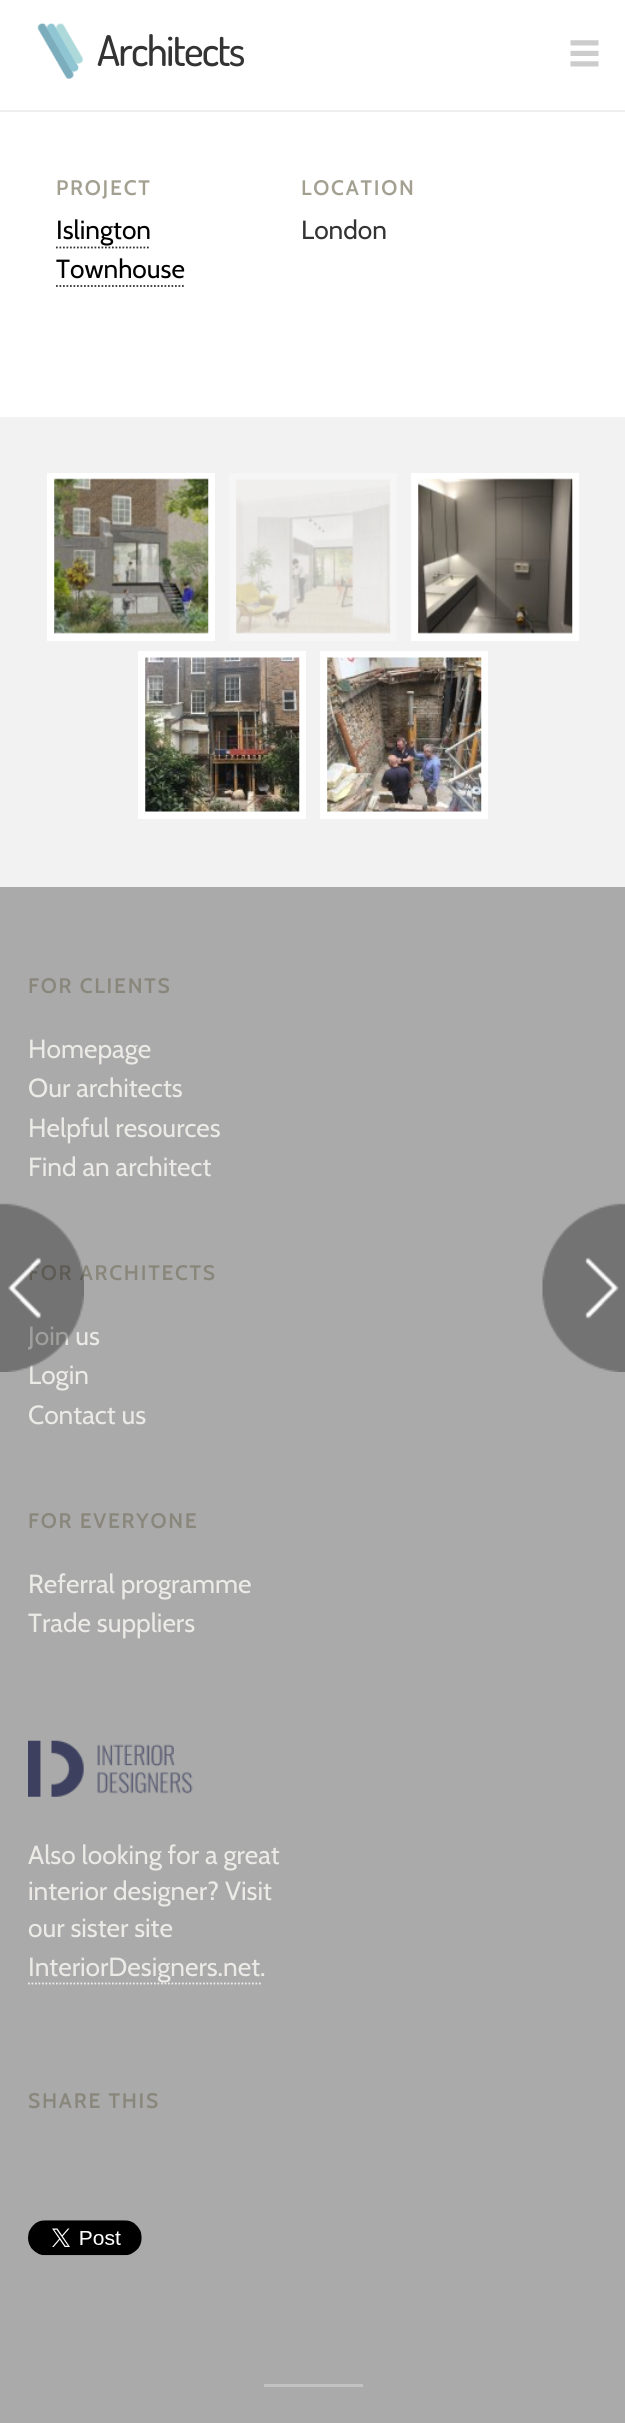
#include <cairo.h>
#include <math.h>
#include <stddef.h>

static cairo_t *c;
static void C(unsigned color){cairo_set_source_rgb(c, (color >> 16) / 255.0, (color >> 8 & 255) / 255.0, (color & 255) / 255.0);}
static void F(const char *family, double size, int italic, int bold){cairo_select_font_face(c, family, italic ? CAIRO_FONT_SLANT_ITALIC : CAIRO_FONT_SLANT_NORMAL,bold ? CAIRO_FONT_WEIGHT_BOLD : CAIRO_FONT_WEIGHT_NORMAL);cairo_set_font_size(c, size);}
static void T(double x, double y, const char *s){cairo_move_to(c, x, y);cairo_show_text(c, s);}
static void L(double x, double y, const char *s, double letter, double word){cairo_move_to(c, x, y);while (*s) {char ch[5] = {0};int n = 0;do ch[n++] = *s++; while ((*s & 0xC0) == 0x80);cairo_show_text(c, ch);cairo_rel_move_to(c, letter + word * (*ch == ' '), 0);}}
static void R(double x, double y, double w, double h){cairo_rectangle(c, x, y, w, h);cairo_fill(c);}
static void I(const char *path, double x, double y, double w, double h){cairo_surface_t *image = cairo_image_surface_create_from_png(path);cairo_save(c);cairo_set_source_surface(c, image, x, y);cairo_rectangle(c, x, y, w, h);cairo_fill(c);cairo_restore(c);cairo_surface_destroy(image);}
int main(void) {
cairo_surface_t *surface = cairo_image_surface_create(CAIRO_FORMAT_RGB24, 625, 2423);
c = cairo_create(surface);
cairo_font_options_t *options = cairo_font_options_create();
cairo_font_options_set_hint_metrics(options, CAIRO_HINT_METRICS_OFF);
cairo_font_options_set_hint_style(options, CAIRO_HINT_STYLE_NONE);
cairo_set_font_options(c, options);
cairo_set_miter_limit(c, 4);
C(0xaaaaaa);
cairo_paint(c);
C(0xffffff);
R(0,0,625,110);
C(0xeeeeee);
R(0,110,625,2);
I("1.png",37,23,47,56);
F("Dosis Medium",42,0,0);
C(0x333333);
L(97,66,"Architects",-1.75,0);
I("2.png",570,40,29,27);
C(0xf2f2f2);
R(0,417,625,470);
C(0xffffff);
R(0,112,625,305);
F("Cabin SemiBold",21,0,0);
C(0xa3a092);
L(56,195,"PROJECT",1.75,0);
F("Cabin",26.25,0,0);
C(0x000000);
T(56,239,"Islington");
cairo_new_path(c);
cairo_move_to(c,56,247.5);
cairo_line_to(c,150.5,247.5);
C(0x333333);
cairo_set_line_width(c,1.8);
cairo_set_dash(c,(double[]){1.75,1.75},2,0);
cairo_stroke(c);
C(0x000000);
T(56,278,"Townhouse");
cairo_new_path(c);
cairo_move_to(c,56,286);
cairo_line_to(c,185.5,286);
C(0x333333);
cairo_stroke(c);
F("Cabin SemiBold",21,0,0);
C(0xa3a092);
L(301,195,"LOCATION",1.75,0);
F("Cabin",26.25,0,0);
C(0x333333);
T(301,239,"London");
cairo_rectangle(c,50.5,476.5,161,161);
C(0xffffff);
cairo_set_line_width(c,7);
cairo_set_dash(c,NULL,0,0);
cairo_stroke(c);
cairo_rectangle(c,232.5,476.5,161,161);
C(0xf6f6f6);
cairo_stroke(c);
cairo_rectangle(c,414.5,476.5,161,161);
C(0xffffff);
cairo_stroke(c);
I("3.png",54,478,155,156);
I("4.png",236,479,155,155);
I("5.png",418,478,155,156);
cairo_rectangle(c,141.5,654.5,161,161);
cairo_stroke(c);
cairo_rectangle(c,323.5,654.5,161,161);
cairo_stroke(c);
I("6.png",145,657,155,155);
I("7.png",327,657,155,155);
F("Cabin SemiBold",21,0,0);
C(0x89867b);
L(28,1280,"FOR ARCHITECTS",1.75,0);
cairo_save(c);
cairo_rectangle(c,28,1230,571,205);
cairo_clip(c);
F("Cabin",26.25,0,0);
C(0xebeae7);
T(28,1345,"Join us");
cairo_restore(c);
F("Cabin",26.25,0,0);
C(0xebeae7);
T(28,1384,"Login");
I("8.png",0,1203,84,169);
I("9.png",542,1203,83,169);
F("Cabin SemiBold",21,0,0);
C(0x89867b);
L(28,993,"FOR CLIENTS",1.75,0);
F("Cabin",26.25,0,0);
C(0xebeae7);
T(28,1058,"Homepage");
T(28,1097,"Our architects");
T(28,1137,"Helpful resources");
T(28,1176,"Find an architect");
T(28,1424,"Contact us");
F("Cabin SemiBold",21,0,0);
C(0x89867b);
L(28,1528,"FOR EVERYONE",1.75,0);
F("Cabin",26.25,0,0);
C(0xebeae7);
T(28,1593,"Referral programme");
T(28,1632,"Trade suppliers");
I("10.png",28,1740,165,57);
T(28,1864,"Also looking for a great");
T(28,1900,"interior designer? Visit");
T(28,1937,"our sister site");
cairo_new_path(c);
cairo_move_to(c,28,1983.5);
cairo_line_to(c,261,1983.5);
C(0xeeeeee);
cairo_set_line_width(c,1.8);
cairo_set_dash(c,(double[]){1.75,1.75},2,0);
cairo_stroke(c);
C(0xebeae7);
T(28,1976,"InteriorDesigners.net.");
F("Cabin SemiBold",21,0,0);
C(0x89867b);
L(28,2108,"SHARE THIS",1.75,0);
I("11.png",28,2220,114,36);
C(0xc2c2c2);
R(264,2384,99,3);
cairo_surface_write_to_png(surface, "o.png");
cairo_font_options_destroy(options);
cairo_destroy(c);
cairo_surface_destroy(surface);
return 0;
}
